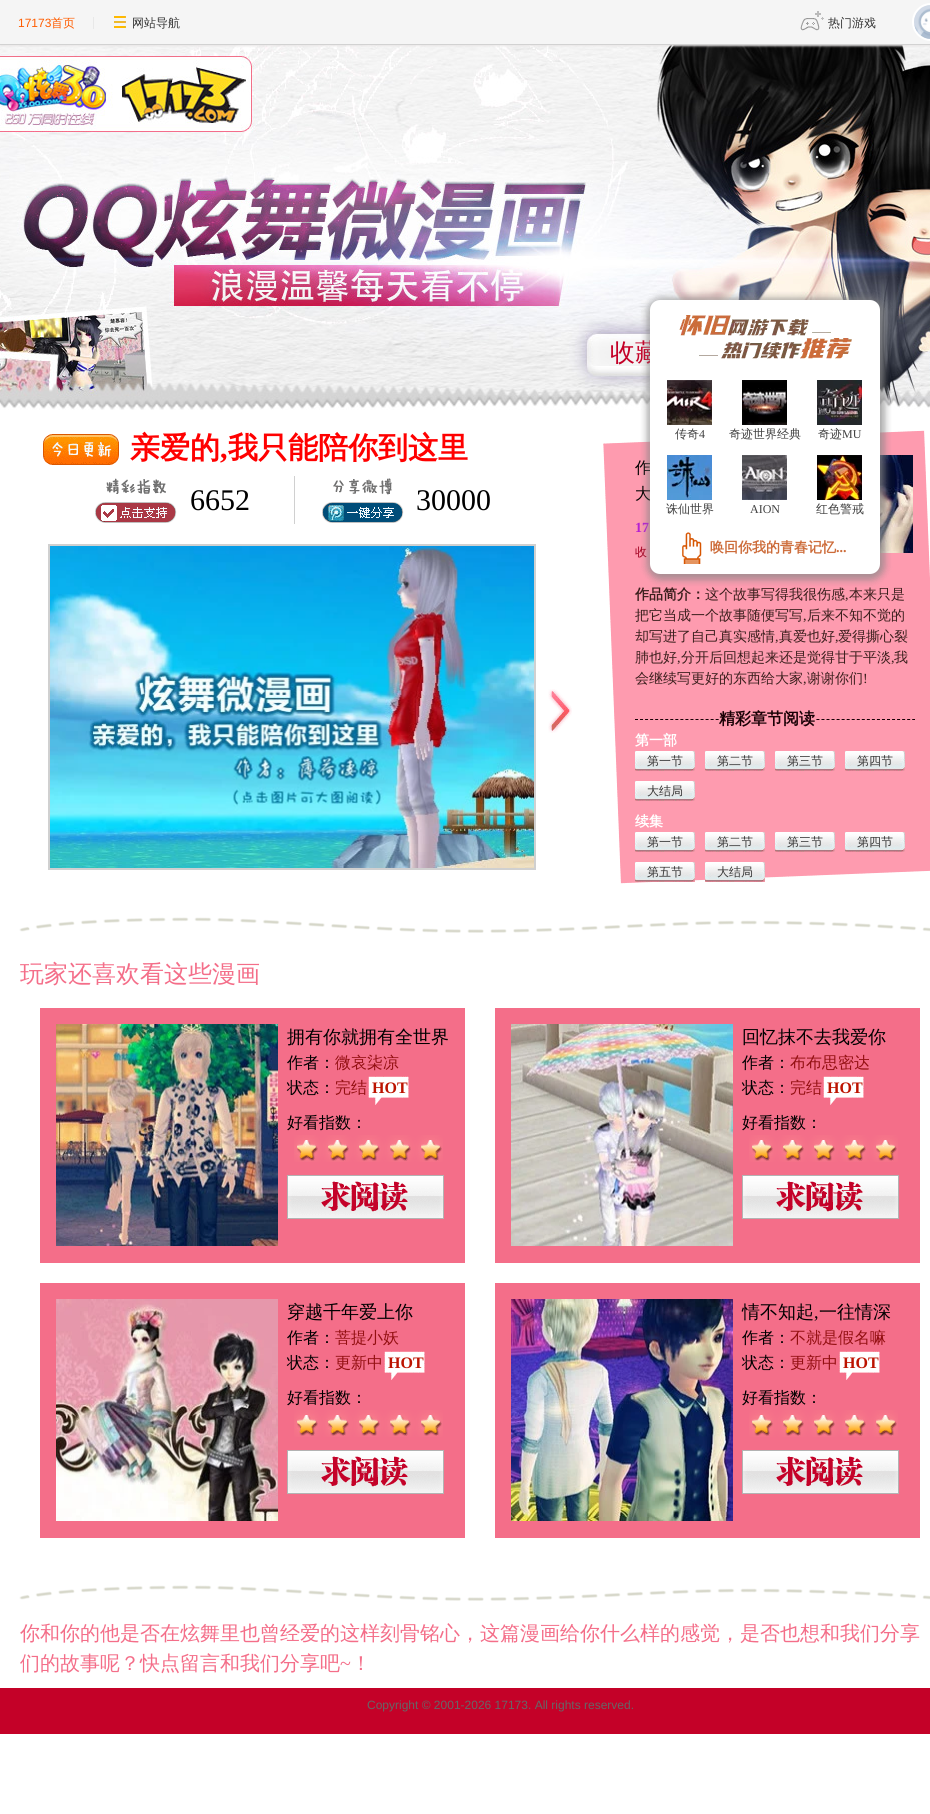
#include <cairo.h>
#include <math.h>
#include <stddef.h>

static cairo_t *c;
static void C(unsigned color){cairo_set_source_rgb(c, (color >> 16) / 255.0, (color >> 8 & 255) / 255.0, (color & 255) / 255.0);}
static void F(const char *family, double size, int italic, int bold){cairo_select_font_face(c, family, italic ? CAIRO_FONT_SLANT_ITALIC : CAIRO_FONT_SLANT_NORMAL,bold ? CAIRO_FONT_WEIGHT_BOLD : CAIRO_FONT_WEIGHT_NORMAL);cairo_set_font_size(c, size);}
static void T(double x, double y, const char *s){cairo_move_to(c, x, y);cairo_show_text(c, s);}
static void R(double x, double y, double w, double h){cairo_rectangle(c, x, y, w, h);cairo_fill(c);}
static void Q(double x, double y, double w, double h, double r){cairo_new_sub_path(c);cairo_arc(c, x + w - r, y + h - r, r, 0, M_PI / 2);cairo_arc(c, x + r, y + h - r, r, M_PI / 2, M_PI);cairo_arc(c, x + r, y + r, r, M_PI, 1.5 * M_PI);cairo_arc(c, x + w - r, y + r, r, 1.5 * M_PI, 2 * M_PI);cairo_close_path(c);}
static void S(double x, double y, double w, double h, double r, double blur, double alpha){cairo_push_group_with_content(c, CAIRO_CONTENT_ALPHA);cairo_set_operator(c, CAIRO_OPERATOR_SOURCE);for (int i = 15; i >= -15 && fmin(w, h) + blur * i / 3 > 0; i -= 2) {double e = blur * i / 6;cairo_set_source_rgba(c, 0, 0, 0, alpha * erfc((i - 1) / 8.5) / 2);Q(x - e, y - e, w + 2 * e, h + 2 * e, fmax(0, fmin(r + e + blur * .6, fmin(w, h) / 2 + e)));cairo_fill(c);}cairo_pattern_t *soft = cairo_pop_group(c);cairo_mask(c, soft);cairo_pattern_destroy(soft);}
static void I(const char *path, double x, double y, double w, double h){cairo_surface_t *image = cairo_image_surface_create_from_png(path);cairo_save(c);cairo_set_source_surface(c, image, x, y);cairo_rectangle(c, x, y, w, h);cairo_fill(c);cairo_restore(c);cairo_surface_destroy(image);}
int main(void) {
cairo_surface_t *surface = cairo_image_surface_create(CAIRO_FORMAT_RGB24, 930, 1814);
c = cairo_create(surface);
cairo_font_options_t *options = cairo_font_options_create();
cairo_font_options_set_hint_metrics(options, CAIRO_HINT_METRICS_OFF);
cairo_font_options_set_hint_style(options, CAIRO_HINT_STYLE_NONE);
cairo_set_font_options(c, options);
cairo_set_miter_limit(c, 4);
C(0xffffff);
cairo_paint(c);
I("4.png",0,45,930,365);
C(0xe8e6e6);
S(0,1,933,45,0,1,1);
C(0xf5f5f5);
R(0,0,930,44);
C(0xd2d2d2);
R(0,44,930,1);
F("Liberation Sans",12,0,0);
C(0xff5c00);
T(18,27,"17173");
F("WenQuanYi Zen Hei Medium",12,0,0);
T(51,27,"首页");
C(0xe8e8e8);
R(93,17,1,12);
I("1.png",114,16,12,12);
C(0x333333);
T(132,27,"网站导航");
I("2.png",800,11,24,20);
T(828,27,"热门游戏");
cairo_new_path(c);
cairo_arc(c,931,22,18,0,2 * M_PI);
C(0xffffff);
cairo_stroke(c);
I("3.png",914,5,16,34);
I("10.png",603,430,327,454);
I("11.png",880,455,33,98);
C(0x888888);
S(648,299,236,280,13,4,.5);
F("WenQuanYi Zen Hei Medium",25,0,0);
C(0xc40128);
T(610,361,"收藏");
I("5.png",43,434,76,31);
F("WenQuanYi Zen Hei",30,0,1);
C(0xff0000);
T(130,458,"亲爱的");
F("Liberation Serif",30,0,1);
T(220,458,",");
F("WenQuanYi Zen Hei",30,0,1);
T(228,458,"我只能陪你到这里");
I("6.png",95,478,82,45);
C(0xd0d0d0);
R(294,476,1,48);
F("Liberation Serif",30,0,0);
C(0x000000);
T(190,510,"6652");
I("7.png",322,478,82,45);
T(416,510,"30000");
cairo_rectangle(c,49,545,486,324);
C(0xd0d0d0);
cairo_stroke(c);
I("8.png",50,546,484,322);
I("9.png",548,689,24,44);
F("WenQuanYi Zen Hei Medium",16,0,0);
C(0x000000);
T(635,473,"作");
T(635,499,"大");
F("Liberation Serif",14,0,1);
C(0xb41fd3);
T(635,532,"17");
F("WenQuanYi Zen Hei Medium",12,0,0);
C(0xa20020);
T(635,556,"收");
F("WenQuanYi Zen Hei",14,0,1);
C(0x3b1f1d);
T(635,599,"作品简介：");
F("WenQuanYi Zen Hei Medium",14,0,0);
T(705,599,"这个故事写得我很伤感");
F("Liberation Serif",14,0,0);
T(845,599,",");
F("WenQuanYi Zen Hei Medium",14,0,0);
T(849,599,"本来只是");
T(635,620,"把它当成一个故事随便写写");
F("Liberation Serif",14,0,0);
T(803,620,",");
F("WenQuanYi Zen Hei Medium",14,0,0);
T(807,620,"后来不知不觉的");
T(635,641,"却写进了自己真实感情");
F("Liberation Serif",14,0,0);
T(775,641,",");
F("WenQuanYi Zen Hei Medium",14,0,0);
T(779,641,"真爱也好");
F("Liberation Serif",14,0,0);
T(835,641,",");
F("WenQuanYi Zen Hei Medium",14,0,0);
T(838,641,"爱得撕心裂");
T(635,662,"肺也好");
F("Liberation Serif",14,0,0);
T(677,662,",");
F("WenQuanYi Zen Hei Medium",14,0,0);
T(681,662,"分开后回想起来还是觉得甘于平淡");
F("Liberation Serif",14,0,0);
T(891,662,",");
F("WenQuanYi Zen Hei Medium",14,0,0);
T(894,662,"我");
T(635,683,"会继续写更好的东西给大家");
F("Liberation Serif",14,0,0);
T(803,683,",");
F("WenQuanYi Zen Hei Medium",14,0,0);
T(807,683,"谢谢你们");
F("Liberation Serif",14,0,0);
T(863,683,"!");
cairo_new_path(c);
cairo_move_to(c,635,719.5);
cairo_line_to(c,915,719.5);
C(0x190005);
cairo_set_line_width(c,1);
cairo_set_dash(c,(double[]){3,2.04},2,0);
cairo_stroke(c);
C(0xfe9baf);
R(720,719,95,1);
F("WenQuanYi Zen Hei",16,0,1);
C(0x190005);
T(719,724,"精彩章节阅读");
F("WenQuanYi Zen Hei",14,0,1);
C(0xffffff);
T(635,745,"第一部");
I("12.png",635,751,60,20);
F("WenQuanYi Zen Hei Medium",12,0,0);
C(0x333333);
T(647,765,"第一节");
I("12.png",705,751,60,20);
T(717,765,"第二节");
I("12.png",775,751,60,20);
T(787,765,"第三节");
I("12.png",845,751,60,20);
T(857,765,"第四节");
I("12.png",635,781,60,20);
T(647,795,"大结局");
F("WenQuanYi Zen Hei",14,0,1);
C(0xffffff);
T(635,826,"续集");
I("12.png",635,832,60,20);
F("WenQuanYi Zen Hei Medium",12,0,0);
C(0x333333);
T(647,846,"第一节");
I("12.png",705,832,60,20);
T(717,846,"第二节");
I("12.png",775,832,60,20);
T(787,846,"第三节");
I("12.png",845,832,60,20);
T(857,846,"第四节");
I("12.png",635,862,60,20);
T(647,876,"第五节");
I("12.png",705,862,60,20);
T(717,876,"大结局");
I("13.png",19,917,911,16);
F("WenQuanYi Zen Hei Medium",24,0,0);
C(0xf46e89);
T(20,982,"玩家还喜欢看这些漫画");
R(40,1008,425,255);
I("14.png",56,1024,222,222);
F("WenQuanYi Zen Hei Medium",18,0,0);
C(0x000000);
T(287,1043,"拥有你就拥有全世界");
F("WenQuanYi Zen Hei Medium",16,0,0);
T(287,1068,"作者：");
C(0x930f11);
T(335,1068,"微哀柒凉");
C(0x000000);
T(287,1093,"状态：");
C(0x930f11);
T(335,1093,"完结");
I("15.png",368,1076,41,29);
F("Liberation Serif",16,0,1);
C(0xbc1300);
T(372,1093,"HOT");
F("WenQuanYi Zen Hei Medium",16,0,0);
C(0x000000);
T(287,1128,"好看指数：");
I("16.png",294,1135,149,27);
I("17.png",287,1175,157,44);
C(0xf46e89);
R(495,1008,425,255);
I("18.png",511,1024,222,222);
F("WenQuanYi Zen Hei Medium",18,0,0);
C(0x000000);
T(742,1043,"回忆抹不去我爱你");
F("WenQuanYi Zen Hei Medium",16,0,0);
T(742,1068,"作者：");
C(0x930f11);
T(790,1068,"布布思密达");
C(0x000000);
T(742,1093,"状态：");
C(0x930f11);
T(790,1093,"完结");
I("15.png",823,1076,41,29);
F("Liberation Serif",16,0,1);
C(0xbc1300);
T(827,1093,"HOT");
F("WenQuanYi Zen Hei Medium",16,0,0);
C(0x000000);
T(742,1128,"好看指数：");
I("16.png",749,1135,149,27);
I("17.png",742,1175,157,44);
C(0xf46e89);
R(40,1283,425,255);
I("19.png",56,1299,222,222);
F("WenQuanYi Zen Hei Medium",18,0,0);
C(0x000000);
T(287,1318,"穿越千年爱上你");
F("WenQuanYi Zen Hei Medium",16,0,0);
T(287,1343,"作者：");
C(0x930f11);
T(335,1343,"菩提小妖");
C(0x000000);
T(287,1368,"状态：");
C(0x930f11);
T(335,1368,"更新中");
I("15.png",384,1351,41,29);
F("Liberation Serif",16,0,1);
C(0xbc1300);
T(388,1368,"HOT");
F("WenQuanYi Zen Hei Medium",16,0,0);
C(0x000000);
T(287,1403,"好看指数：");
I("16.png",294,1410,149,27);
I("17.png",287,1450,157,44);
C(0xf46e89);
R(495,1283,425,255);
I("20.png",511,1299,222,222);
F("WenQuanYi Zen Hei Medium",18,0,0);
C(0x000000);
T(742,1318,"情不知起");
F("Liberation Serif",18,0,0);
T(814,1318,",");
F("WenQuanYi Zen Hei Medium",18,0,0);
T(819,1318,"一往情深");
F("WenQuanYi Zen Hei Medium",16,0,0);
T(742,1343,"作者：");
C(0x930f11);
T(790,1343,"不就是假名嘛");
C(0x000000);
T(742,1368,"状态：");
C(0x930f11);
T(790,1368,"更新中");
I("15.png",839,1351,41,29);
F("Liberation Serif",16,0,1);
C(0xbc1300);
T(843,1368,"HOT");
F("WenQuanYi Zen Hei Medium",16,0,0);
C(0x000000);
T(742,1403,"好看指数：");
I("16.png",749,1410,149,27);
I("17.png",742,1450,157,44);
I("13.png",19,1585,911,16);
F("WenQuanYi Zen Hei Medium",20,0,0);
C(0xf46e89);
T(20,1640,"你和你的他是否在炫舞里也曾经爱的这样刻骨铭心，这篇漫画给你什么样的感觉，是否也想和我们分享");
T(20,1670,"们的故事呢？快点留言和我们分享吧");
F("Liberation Serif",20,0,0);
T(340,1670,"~");
F("WenQuanYi Zen Hei Medium",20,0,0);
T(351,1670,"！");
C(0x888888);
S(648,299,236,280,13,4,.5);
C(0xffffff);
Q(650,300,230,274,10);
cairo_fill(c);
I("21.png",679,315,173,44);
I("22.png",667,380,45,45);
F("WenQuanYi Zen Hei Medium",12,0,0);
C(0x404040);
T(675,438,"传奇");
F("Liberation Serif",12,0,0);
T(699,438,"4");
I("23.png",742,380,45,45);
F("WenQuanYi Zen Hei Medium",12,0,0);
T(729,438,"奇迹世界经典");
I("24.png",817,380,45,45);
T(818,438,"奇迹");
F("Liberation Serif",12,0,0);
T(842,438,"MU");
I("25.png",667,455,45,45);
F("WenQuanYi Zen Hei Medium",12,0,0);
T(666,513,"诛仙世界");
I("26.png",742,455,45,45);
F("Liberation Serif",12,0,0);
T(750,513,"AION");
I("27.png",817,455,45,45);
F("WenQuanYi Zen Hei Medium",12,0,0);
T(816,513,"红色警戒");
I("28.png",682,532,20,32);
F("WenQuanYi Zen Hei",14,0,1);
C(0xcd6c3a);
T(710,552,"唤回你我的青春记忆");
F("Liberation Serif",14,0,1);
T(836,552,"...");
C(0xc40128);
R(0,1688,930,46);
F("Liberation Sans",12,0,0);
C(0x666666);
T(367,1709,"Copyright © 2001-2026 17173. All rights reserved.");
cairo_surface_write_to_png(surface, "o.png");
cairo_font_options_destroy(options);
cairo_destroy(c);
cairo_surface_destroy(surface);
return 0;
}
